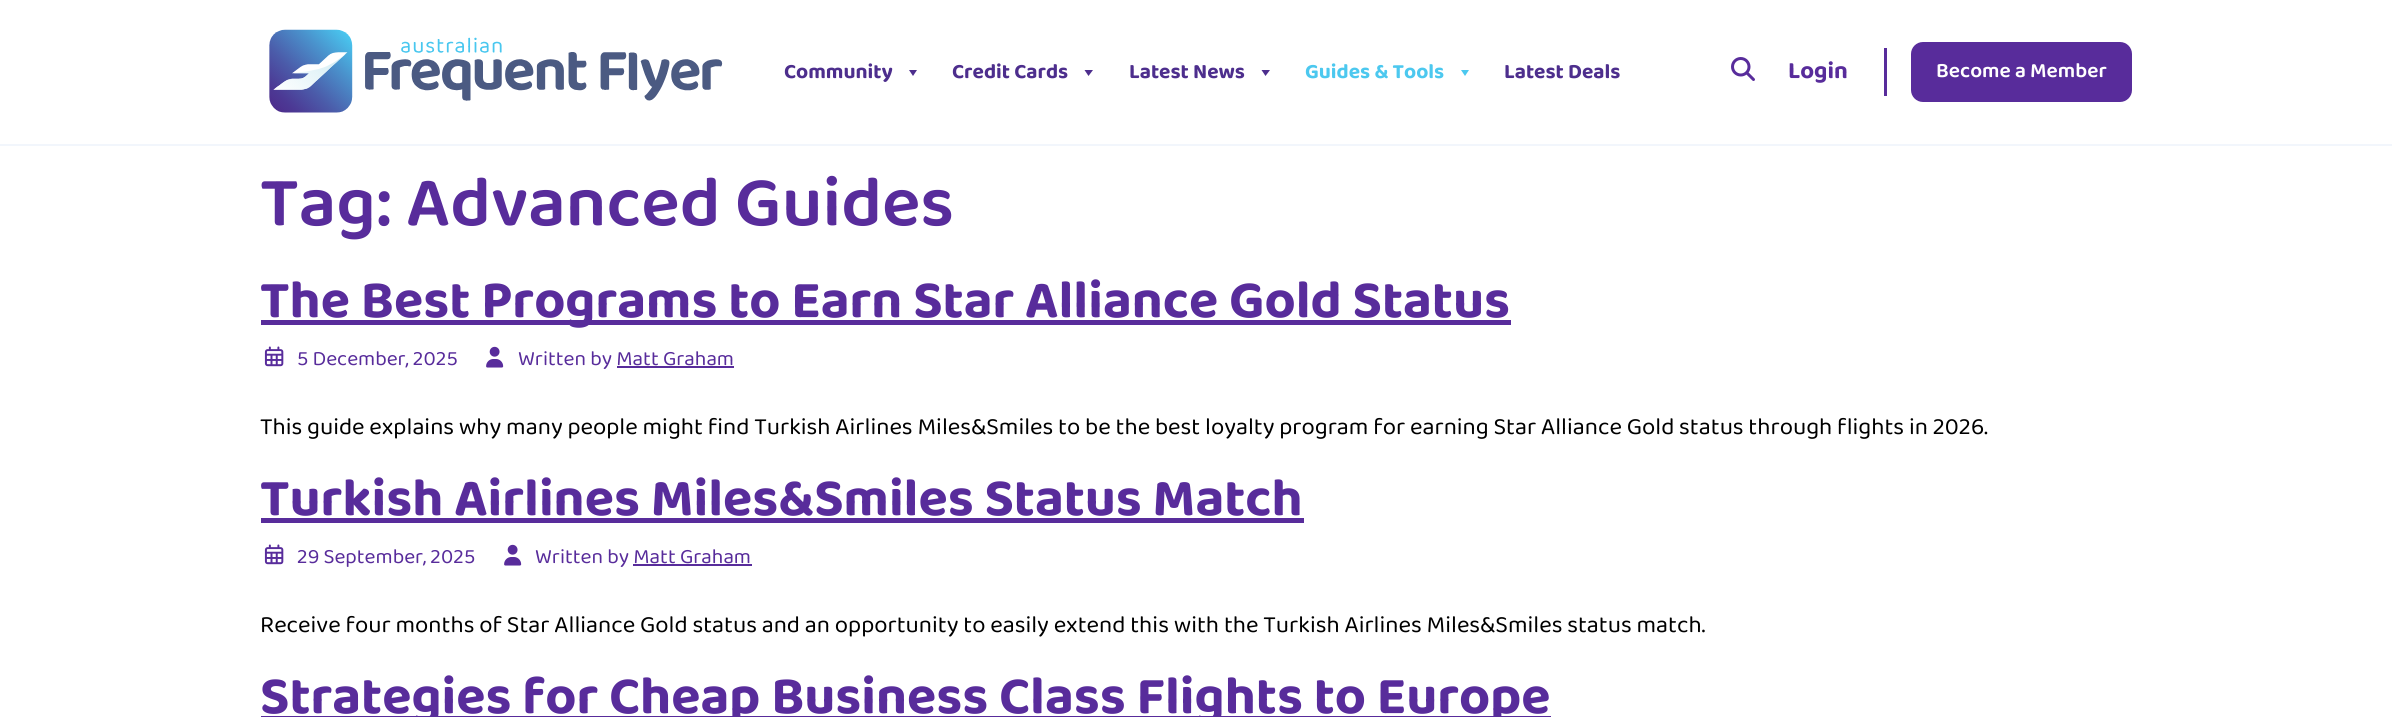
#include <cairo.h>
#include <math.h>
#include <stddef.h>

static cairo_t *c;
static void C(unsigned color){cairo_set_source_rgb(c, (color >> 16) / 255.0, (color >> 8 & 255) / 255.0, (color & 255) / 255.0);}
static void F(const char *family, double size, int italic, int bold){cairo_select_font_face(c, family, italic ? CAIRO_FONT_SLANT_ITALIC : CAIRO_FONT_SLANT_NORMAL,bold ? CAIRO_FONT_WEIGHT_BOLD : CAIRO_FONT_WEIGHT_NORMAL);cairo_set_font_size(c, size);}
static void T(double x, double y, const char *s){cairo_move_to(c, x, y);cairo_show_text(c, s);}
static void R(double x, double y, double w, double h){cairo_rectangle(c, x, y, w, h);cairo_fill(c);}
static void Q(double x, double y, double w, double h, double r){cairo_new_sub_path(c);cairo_arc(c, x + w - r, y + h - r, r, 0, M_PI / 2);cairo_arc(c, x + r, y + h - r, r, M_PI / 2, M_PI);cairo_arc(c, x + r, y + r, r, M_PI, 1.5 * M_PI);cairo_arc(c, x + w - r, y + r, r, 1.5 * M_PI, 2 * M_PI);cairo_close_path(c);}
static void I(const char *path, double x, double y, double w, double h){cairo_surface_t *image = cairo_image_surface_create_from_png(path);cairo_save(c);cairo_set_source_surface(c, image, x, y);cairo_rectangle(c, x, y, w, h);cairo_fill(c);cairo_restore(c);cairo_surface_destroy(image);}
int main(void) {
cairo_surface_t *surface = cairo_image_surface_create(CAIRO_FORMAT_RGB24, 2392, 717);
c = cairo_create(surface);
cairo_font_options_t *options = cairo_font_options_create();
cairo_font_options_set_hint_metrics(options, CAIRO_HINT_METRICS_OFF);
cairo_font_options_set_hint_style(options, CAIRO_HINT_STYLE_NONE);
cairo_set_font_options(c, options);
cairo_set_miter_limit(c, 4);
C(0xffffff);
cairo_paint(c);
C(0xf2f6fc);
R(0,144,2392,2);
I("1.png",269,29,454,84);
F("Baloo 2",21,0,1);
C(0x4d2e8d);
T(784,78,"Community");
cairo_new_path(c);
cairo_move_to(c,917,70);
cairo_line_to(c,913,76);
cairo_line_to(c,909,70);
cairo_close_path(c);
cairo_fill(c);
T(952,78,"Credit Cards");
cairo_new_path(c);
cairo_move_to(c,1093,70);
cairo_line_to(c,1088.5,76);
cairo_line_to(c,1084.5,70);
cairo_close_path(c);
cairo_fill(c);
T(1129,78,"Latest News");
cairo_new_path(c);
cairo_move_to(c,1270,70);
cairo_line_to(c,1265.5,76);
cairo_line_to(c,1261.5,70);
cairo_close_path(c);
cairo_fill(c);
C(0x4cc8ef);
T(1305,78,"Guides & Tools");
cairo_new_path(c);
cairo_move_to(c,1469,70);
cairo_line_to(c,1465,76);
cairo_line_to(c,1461,70);
cairo_close_path(c);
cairo_fill(c);
C(0x4d2e8d);
T(1504,78,"Latest Deals");
I("2.png",1731,57,24,24);
F("Baloo 2",24,0,1);
C(0x582c9b);
T(1788,78,"Login");
R(1884,48,3,48);
Q(1912,43,219,58,11);
cairo_fill_preserve(c);
cairo_stroke(c);
F("Baloo 2 SemiBold",21,0,0);
C(0xffffff);
T(1936,77,"Become a Member");
F("Baloo 2 SemiBold",72,0,0);
C(0x582c9b);
T(260,225,"Tag: Advanced Guides");
R(261,320,1250,5);
F("Baloo 2",54,0,1);
T(260,317,"The Best Programs to Earn Star Alliance Gold Status");
I("3.png",264,346,20,21);
F("Baloo 2",21,0,0);
T(297,365,"5 December, 2025");
I("4.png",486,346,18,22);
T(518,365,"Written by Matt Graham");
R(617,366,117,2);
F("Baloo 2",24,0,0);
C(0x000000);
T(260,434,"This guide explains why many people might find Turkish Airlines Miles&Smiles to be the best loyalty program for earning Star Alliance Gold status through flights in 2026.");
F("Baloo 2",54,0,1);
C(0x582c9b);
T(260,515,"Turkish Airlines Miles&Smiles Status Match");
R(261,518,1043,5);
I("3.png",264,544,20,21);
F("Baloo 2",21,0,0);
T(297,563,"29 September, 2025");
I("4.png",504,544,18,22);
T(535,563,"Written by Matt Graham");
R(633,564,119,2);
F("Baloo 2",24,0,0);
C(0x000000);
T(260,632,"Receive four months of Star Alliance Gold status and an opportunity to easily extend this with the Turkish Airlines Miles&Smiles status match.");
C(0x582c9b);
R(261,716,1290,1);
F("Baloo 2",54,0,1);
T(260,713,"Strategies for Cheap Business Class Flights to Europe");
cairo_surface_write_to_png(surface, "o.png");
cairo_font_options_destroy(options);
cairo_destroy(c);
cairo_surface_destroy(surface);
return 0;
}
